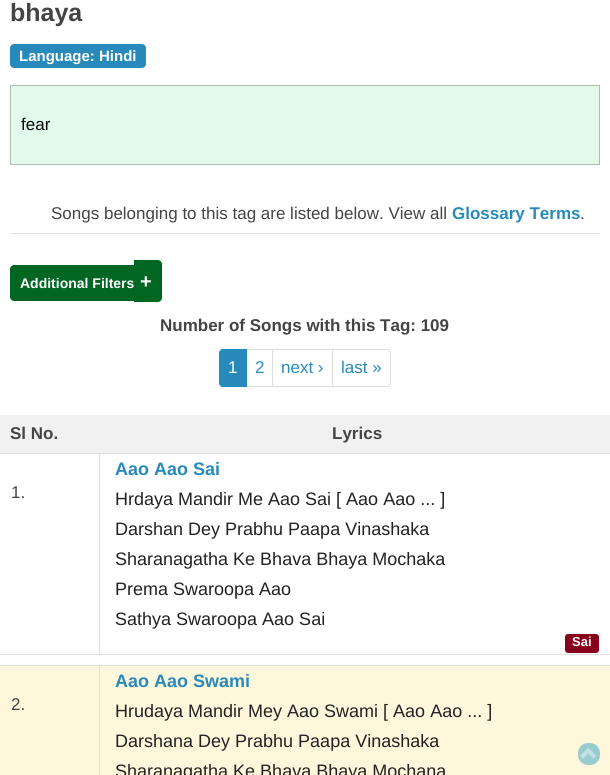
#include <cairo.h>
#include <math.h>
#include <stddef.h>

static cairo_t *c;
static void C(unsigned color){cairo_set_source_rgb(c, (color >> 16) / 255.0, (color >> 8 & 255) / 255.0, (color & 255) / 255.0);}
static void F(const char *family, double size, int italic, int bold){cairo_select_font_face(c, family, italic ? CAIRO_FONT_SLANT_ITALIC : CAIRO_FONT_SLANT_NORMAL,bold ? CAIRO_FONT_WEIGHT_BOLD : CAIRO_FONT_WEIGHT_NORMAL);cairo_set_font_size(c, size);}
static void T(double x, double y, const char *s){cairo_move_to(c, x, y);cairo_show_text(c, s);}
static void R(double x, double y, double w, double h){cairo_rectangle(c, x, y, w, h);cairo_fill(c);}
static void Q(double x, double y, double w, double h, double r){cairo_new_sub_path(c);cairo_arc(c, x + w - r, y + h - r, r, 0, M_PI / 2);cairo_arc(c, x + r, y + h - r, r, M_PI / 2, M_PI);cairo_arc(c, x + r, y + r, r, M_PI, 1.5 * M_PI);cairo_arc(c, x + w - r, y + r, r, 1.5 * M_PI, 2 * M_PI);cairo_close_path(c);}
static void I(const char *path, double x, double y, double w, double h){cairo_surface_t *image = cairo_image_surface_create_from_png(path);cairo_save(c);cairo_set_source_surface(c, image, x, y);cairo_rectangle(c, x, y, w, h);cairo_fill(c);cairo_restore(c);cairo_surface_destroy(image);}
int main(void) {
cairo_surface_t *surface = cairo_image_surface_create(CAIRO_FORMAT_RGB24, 610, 775);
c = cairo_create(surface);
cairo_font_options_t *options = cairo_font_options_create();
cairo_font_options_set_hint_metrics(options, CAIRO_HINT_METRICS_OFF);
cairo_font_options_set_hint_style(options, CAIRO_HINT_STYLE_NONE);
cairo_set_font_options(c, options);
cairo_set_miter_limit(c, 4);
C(0xffffff);
cairo_paint(c);
F("Liberation Sans",25,0,1);
C(0x444444);
T(10,21,"bhaya");
C(0x288abb);
cairo_new_path(c);
cairo_move_to(c,14,44);
cairo_line_to(c,99,44);
cairo_line_to(c,99,68);
cairo_line_to(c,14,68);
cairo_curve_to(c,12,68,10,66,10,64);
cairo_line_to(c,10,48);
cairo_curve_to(c,10,46,12,44,14,44);
cairo_close_path(c);
cairo_fill(c);
cairo_new_path(c);
cairo_move_to(c,99,44);
cairo_line_to(c,142,44);
cairo_curve_to(c,144,44,146,46,146,48);
cairo_line_to(c,146,64);
cairo_curve_to(c,146,66,144,68,142,68);
cairo_line_to(c,99,68);
cairo_close_path(c);
cairo_fill(c);
F("Liberation Sans",15,0,1);
C(0xffffff);
T(19,61,"Language: Hindi");
C(0xe1faea);
cairo_rectangle(c,10.5,85.5,589,79);
cairo_fill_preserve(c);
C(0xabbeb2);
cairo_set_line_width(c,1);
cairo_stroke(c);
F("Liberation Sans",17,0,0);
C(0x0a0a0a);
T(21,130,"fear");
C(0xe0e0e0);
R(10,233,590,1);
C(0x444444);
T(51,219,"Songs belonging to this tag are listed below. View all");
F("Liberation Sans",17,0,1);
C(0x288abb);
T(452,219,"Glossary Terms");
F("Liberation Sans",17,0,0);
C(0x444444);
T(580,219,".");
C(0x006621);
cairo_new_path(c);
cairo_move_to(c,14,265);
cairo_line_to(c,134,265);
cairo_line_to(c,134,301);
cairo_line_to(c,14,301);
cairo_curve_to(c,12,301,10,299,10,297);
cairo_line_to(c,10,269);
cairo_curve_to(c,10,267,12,265,14,265);
cairo_close_path(c);
cairo_fill(c);
F("Liberation Sans",14,0,1);
C(0xffffff);
T(20,288,"Additional Filters");
C(0x006621);
cairo_new_path(c);
cairo_move_to(c,134,260);
cairo_line_to(c,158,260);
cairo_curve_to(c,160,260,162,262,162,264);
cairo_line_to(c,162,298);
cairo_curve_to(c,162,300,160,302,158,302);
cairo_line_to(c,134,302);
cairo_close_path(c);
cairo_fill(c);
F("Liberation Sans",20,0,1);
C(0xffffff);
T(140,288,"+");
F("Liberation Sans",17,0,1);
C(0x444444);
T(160,331,"Number of Songs with this Tag: 109");
cairo_rectangle(c,246.5,349.5,26,37);
C(0xdddddd);
cairo_stroke(c);
C(0x288abb);
cairo_new_path(c);
cairo_move_to(c,223,349.5);
cairo_line_to(c,246.5,349.5);
cairo_line_to(c,246.5,386.5);
cairo_line_to(c,223,386.5);
cairo_curve_to(c,221,386.5,219.5,385,219.5,383);
cairo_line_to(c,219.5,353);
cairo_curve_to(c,219.5,351,221,349.5,223,349.5);
cairo_close_path(c);
cairo_fill_preserve(c);
cairo_stroke(c);
F("Liberation Sans",17,0,0);
C(0xffffff);
T(228,373,"1");
C(0x288abb);
T(255,373,"2");
cairo_rectangle(c,272.5,349.5,60,37);
C(0xdddddd);
cairo_stroke(c);
C(0x288abb);
T(281,373,"next ›");
C(0xffffff);
cairo_new_path(c);
cairo_move_to(c,332.5,349.5);
cairo_line_to(c,387,349.5);
cairo_curve_to(c,389,349.5,390.5,351,390.5,353);
cairo_line_to(c,390.5,383);
cairo_curve_to(c,390.5,385,389,386.5,387,386.5);
cairo_line_to(c,332.5,386.5);
cairo_close_path(c);
cairo_fill_preserve(c);
C(0xdddddd);
cairo_stroke(c);
C(0x288abb);
T(341,373,"last »");
C(0xf1f1f1);
R(0,415,610,38);
F("Liberation Sans",17,0,1);
C(0x444444);
T(10,439,"Sl No.");
T(332,439,"Lyrics");
cairo_rectangle(c,-.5,453.5,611,201);
C(0xe0e0e0);
cairo_stroke(c);
F("Liberation Sans",17,0,0);
C(0x444444);
T(11,498,"1.");
C(0xe0e0e0);
R(99,454,1,200);
F("Liberation Sans",18,0,1);
C(0x288abb);
T(115,475,"Aao Aao Sai");
F("Liberation Sans",18,0,0);
C(0x222222);
T(115,505,"Hrdaya Mandir Me Aao Sai [ Aao Aao ... ]");
T(115,535,"Darshan Dey Prabhu Paapa Vinashaka");
T(115,565,"Sharanagatha Ke Bhava Bhaya Mochaka");
T(115,595,"Prema Swaroopa Aao");
T(115,625,"Sathya Swaroopa Aao Sai");
C(0x89001d);
Q(565,634,34,19,3);
cairo_fill(c);
F("Liberation Sans",13,0,1);
C(0xffffff);
T(572,646,"Sai");
C(0xfff7dc);
cairo_rectangle(c,-.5,665.5,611,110);
cairo_fill_preserve(c);
C(0xe0e0e0);
cairo_stroke(c);
F("Liberation Sans",17,0,0);
C(0x444444);
T(11,710,"2.");
C(0xe0e0e0);
R(99,666,1,109);
F("Liberation Sans",18,0,1);
C(0x288abb);
T(115,687,"Aao Aao Swami");
F("Liberation Sans",18,0,0);
C(0x222222);
T(115,717,"Hrudaya Mandir Mey Aao Swami [ Aao Aao ... ]");
T(115,747,"Darshana Dey Prabhu Paapa Vinashaka");
T(115,777,"Sharanagatha Ke Bhava Bhaya Mochana");
C(0x99ccce);
Q(578,743,22,22,10);
cairo_fill(c);
I("1.png",580,747,17,12);
cairo_surface_write_to_png(surface, "o.png");
cairo_font_options_destroy(options);
cairo_destroy(c);
cairo_surface_destroy(surface);
return 0;
}
